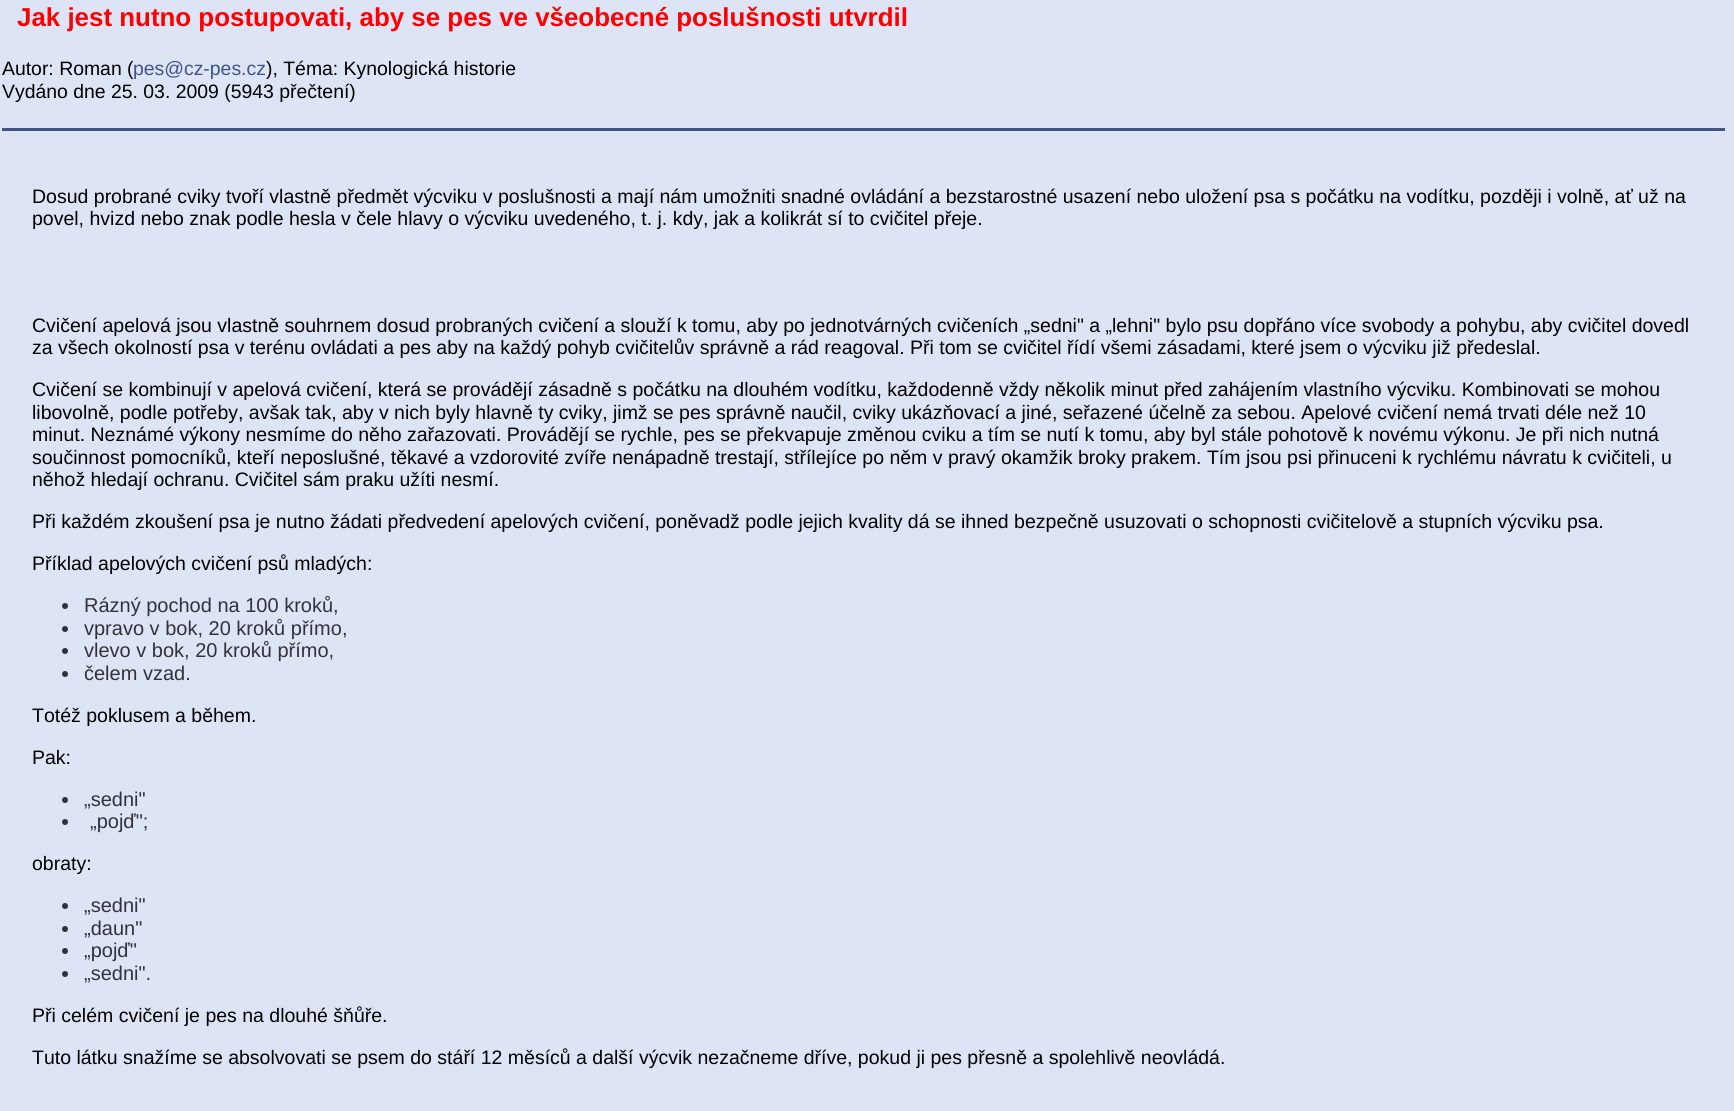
#include <cairo.h>
#include <math.h>
#include <stddef.h>

static cairo_t *c;
static void C(unsigned color){cairo_set_source_rgb(c, (color >> 16) / 255.0, (color >> 8 & 255) / 255.0, (color & 255) / 255.0);}
static void F(const char *family, double size, int italic, int bold){cairo_select_font_face(c, family, italic ? CAIRO_FONT_SLANT_ITALIC : CAIRO_FONT_SLANT_NORMAL,bold ? CAIRO_FONT_WEIGHT_BOLD : CAIRO_FONT_WEIGHT_NORMAL);cairo_set_font_size(c, size);}
static void T(double x, double y, const char *s){cairo_move_to(c, x, y);cairo_show_text(c, s);}
static void R(double x, double y, double w, double h){cairo_rectangle(c, x, y, w, h);cairo_fill(c);}
int main(void) {
cairo_surface_t *surface = cairo_image_surface_create(CAIRO_FORMAT_RGB24, 1734, 1111);
c = cairo_create(surface);
cairo_font_options_t *options = cairo_font_options_create();
cairo_font_options_set_hint_metrics(options, CAIRO_HINT_METRICS_OFF);
cairo_font_options_set_hint_style(options, CAIRO_HINT_STYLE_NONE);
cairo_set_font_options(c, options);
cairo_set_miter_limit(c, 4);
C(0xdde4f6);
cairo_paint(c);
F("Liberation Sans",25.9,0,1);
C(0xff0000);
T(17,26,"Jak jest nutno postupovati, aby se pes ve všeobecné poslušnosti utvrdil");
F("Liberation Sans",19.4,0,0);
C(0x000000);
T(2,75,"Autor: Roman (");
C(0x425385);
T(133,75,"pes@cz-pes.cz");
C(0x000000);
T(266,75,"), Téma: Kynologická historie");
T(2,98,"Vydáno dne 25. 03. 2009 (5943 přečtení)");
C(0x425385);
R(2,128,1723,3);
F("Liberation Sans",19.5,0,0);
C(0x000000);
T(32,203,"Dosud probrané cviky tvoří vlastně předmět výcviku v poslušnosti a mají nám umožniti snadné ovládání a bezstarostné usazení nebo uložení psa s počátku na vodítku, později i volně, ať už na");
T(32,225,"povel, hvizd nebo znak podle hesla v čele hlavy o výcviku uvedeného, t. j. kdy, jak a kolikrát sí to cvičitel přeje.");
T(32,332,"Cvičení apelová jsou vlastně souhrnem dosud probraných cvičení a slouží k tomu, aby po jednotvárných cvičeních „sedni\" a „lehni\" bylo psu dopřáno více svobody a pohybu, aby cvičitel dovedl");
T(32,354,"za všech okolností psa v terénu ovládati a pes aby na každý pohyb cvičitelův správně a rád reagoval. Při tom se cvičitel řídí všemi zásadami, které jsem o výcviku již předeslal.");
T(32,396,"Cvičení se kombinují v apelová cvičení, která se provádějí zásadně s počátku na dlouhém vodítku, každodenně vždy několik minut před zahájením vlastního výcviku. Kombinovati se mohou");
T(32,419,"libovolně, podle potřeby, avšak tak, aby v nich byly hlavně ty cviky, jimž se pes správně naučil, cviky ukázňovací a jiné, seřazené účelně za sebou. Apelové cvičení nemá trvati déle než 10");
T(32,441,"minut. Neznámé výkony nesmíme do něho zařazovati. Provádějí se rychle, pes se překvapuje změnou cviku a tím se nutí k tomu, aby byl stále pohotově k novému výkonu. Je při nich nutná");
T(32,464,"součinnost pomocníků, kteří neposlušné, těkavé a vzdorovité zvíře nenápadně trestají, střílejíce po něm v pravý okamžik broky prakem. Tím jsou psi přinuceni k rychlému návratu k cvičiteli, u");
T(32,486,"něhož hledají ochranu. Cvičitel sám praku užíti nesmí.");
T(32,528,"Při každém zkoušení psa je nutno žádati předvedení apelových cvičení, poněvadž podle jejich kvality dá se ihned bezpečně usuzovati o schopnosti cvičitelově a stupních výcviku psa.");
T(32,570,"Příklad apelových cvičení psů mladých:");
C(0x32323a);
cairo_new_path(c);
cairo_arc(c,65,606,3,0,2 * M_PI);
cairo_fill(c);
F("Liberation Sans",20,0,0);
T(84,612,"Rázný pochod na 100 kroků,");
cairo_new_path(c);
cairo_arc(c,65,629,3,0,2 * M_PI);
cairo_fill(c);
T(84,635,"vpravo v bok, 20 kroků přímo,");
cairo_new_path(c);
cairo_arc(c,65,651,3,0,2 * M_PI);
cairo_fill(c);
T(84,657,"vlevo v bok, 20 kroků přímo,");
cairo_new_path(c);
cairo_arc(c,65,674,3,0,2 * M_PI);
cairo_fill(c);
T(84,680,"čelem vzad.");
F("Liberation Sans",19.5,0,0);
C(0x000000);
T(32,722,"Totéž poklusem a během.");
T(32,764,"Pak:");
C(0x32323a);
cairo_new_path(c);
cairo_arc(c,65,800,3,0,2 * M_PI);
cairo_fill(c);
F("Liberation Sans",20,0,0);
T(84,806,"„sedni\"");
cairo_new_path(c);
cairo_arc(c,65,822,3,0,2 * M_PI);
cairo_fill(c);
T(90,828,"„pojď\";");
F("Liberation Sans",19.5,0,0);
C(0x000000);
T(32,870,"obraty:");
C(0x32323a);
cairo_new_path(c);
cairo_arc(c,65,906,3,0,2 * M_PI);
cairo_fill(c);
F("Liberation Sans",20,0,0);
T(84,912,"„sedni\"");
cairo_new_path(c);
cairo_arc(c,65,929,3,0,2 * M_PI);
cairo_fill(c);
T(84,935,"„daun\"");
cairo_new_path(c);
cairo_arc(c,65,951,3,0,2 * M_PI);
cairo_fill(c);
T(84,957,"„pojď\"");
cairo_new_path(c);
cairo_arc(c,65,974,3,0,2 * M_PI);
cairo_fill(c);
T(84,980,"„sedni\".");
F("Liberation Sans",19.5,0,0);
C(0x000000);
T(32,1022,"Při celém cvičení je pes na dlouhé šňůře.");
T(32,1064,"Tuto látku snažíme se absolvovati se psem do stáří 12 měsíců a další výcvik nezačneme dříve, pokud ji pes přesně a spolehlivě neovládá.");
cairo_surface_write_to_png(surface, "o.png");
cairo_font_options_destroy(options);
cairo_destroy(c);
cairo_surface_destroy(surface);
return 0;
}
